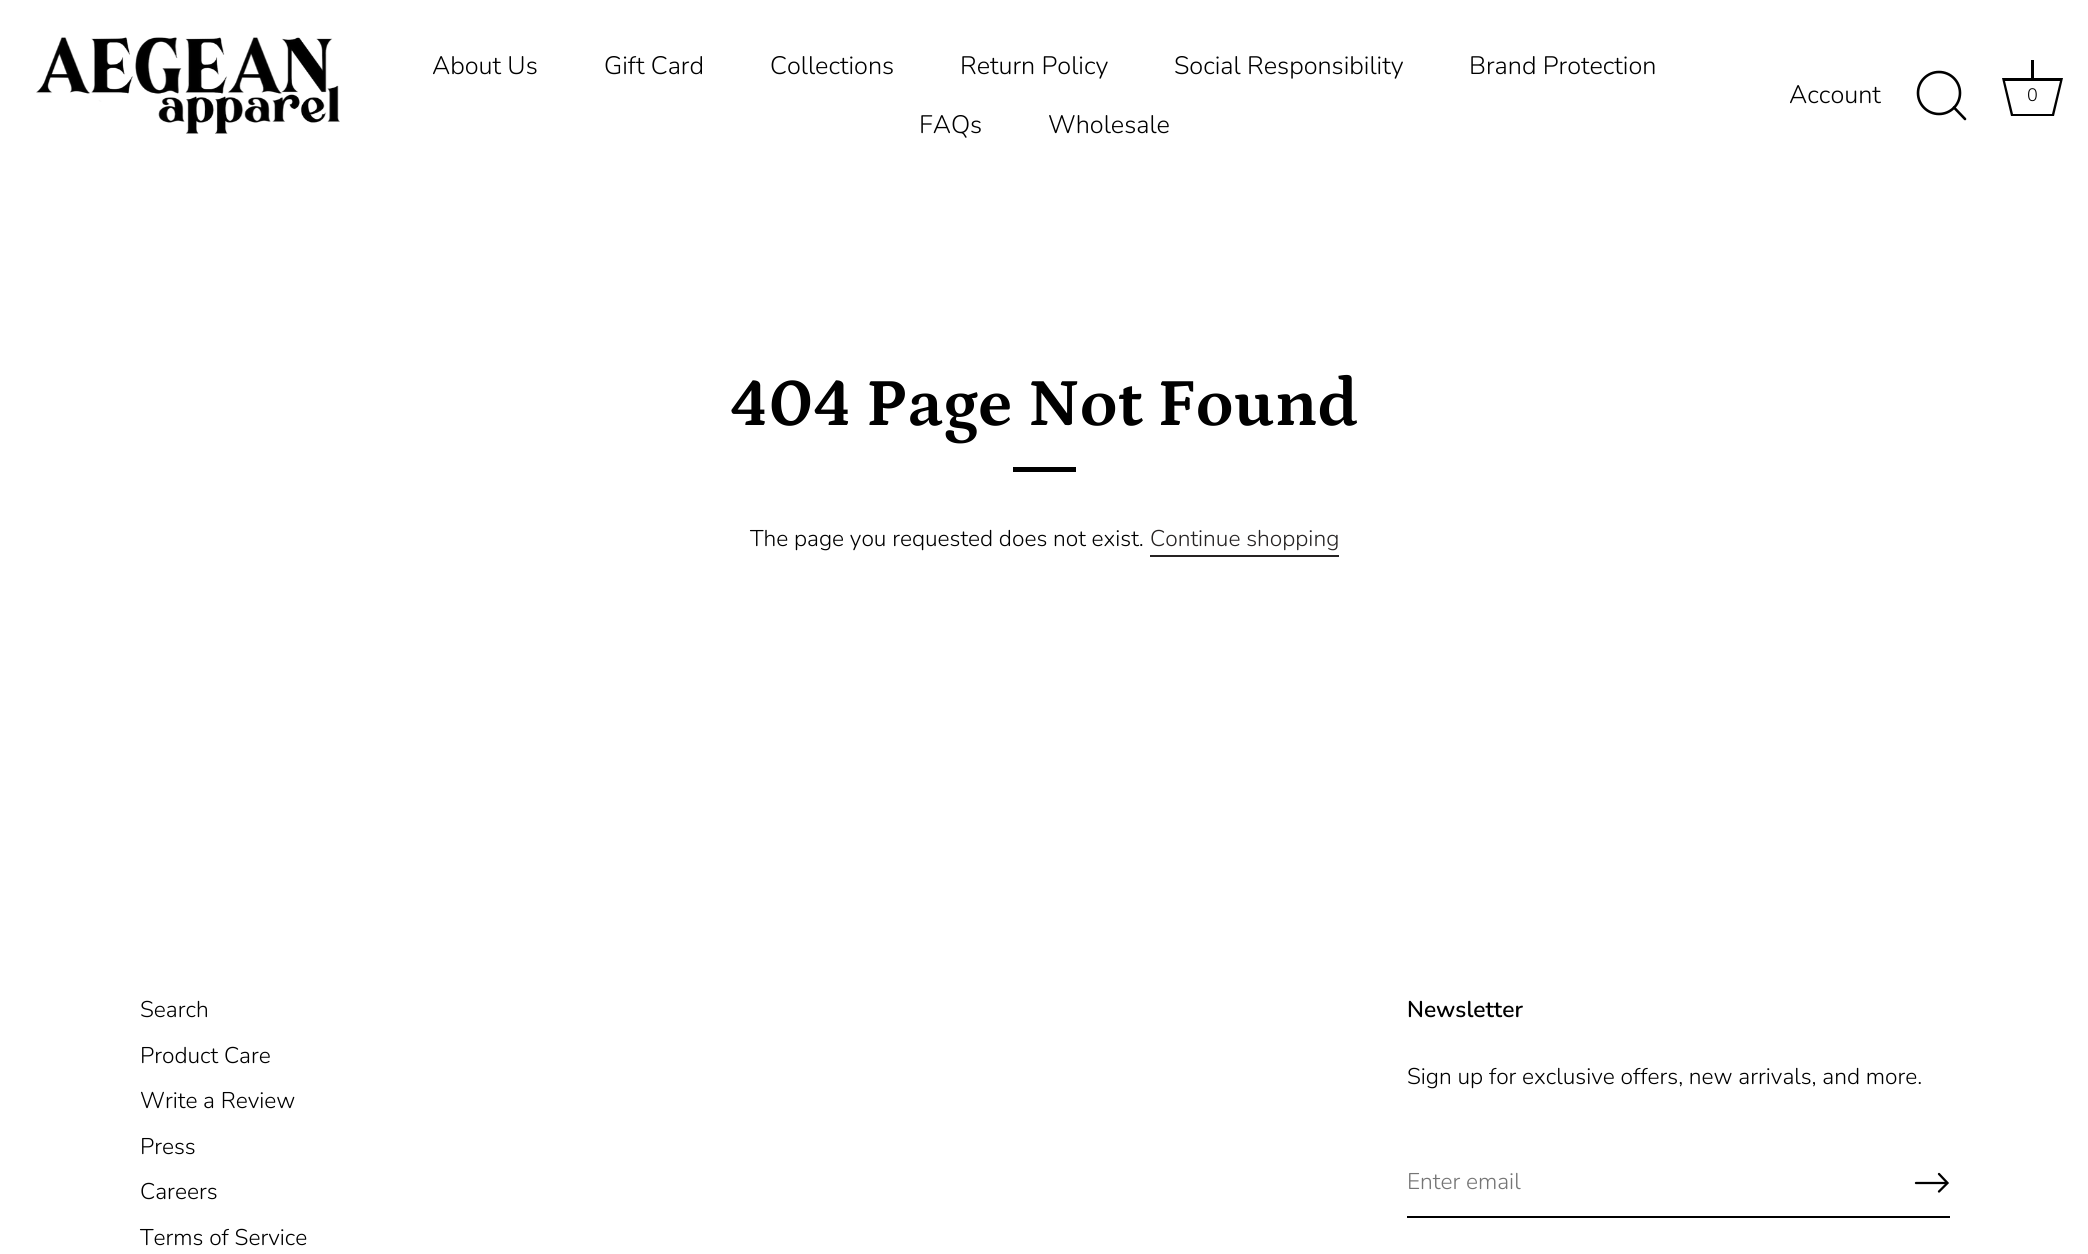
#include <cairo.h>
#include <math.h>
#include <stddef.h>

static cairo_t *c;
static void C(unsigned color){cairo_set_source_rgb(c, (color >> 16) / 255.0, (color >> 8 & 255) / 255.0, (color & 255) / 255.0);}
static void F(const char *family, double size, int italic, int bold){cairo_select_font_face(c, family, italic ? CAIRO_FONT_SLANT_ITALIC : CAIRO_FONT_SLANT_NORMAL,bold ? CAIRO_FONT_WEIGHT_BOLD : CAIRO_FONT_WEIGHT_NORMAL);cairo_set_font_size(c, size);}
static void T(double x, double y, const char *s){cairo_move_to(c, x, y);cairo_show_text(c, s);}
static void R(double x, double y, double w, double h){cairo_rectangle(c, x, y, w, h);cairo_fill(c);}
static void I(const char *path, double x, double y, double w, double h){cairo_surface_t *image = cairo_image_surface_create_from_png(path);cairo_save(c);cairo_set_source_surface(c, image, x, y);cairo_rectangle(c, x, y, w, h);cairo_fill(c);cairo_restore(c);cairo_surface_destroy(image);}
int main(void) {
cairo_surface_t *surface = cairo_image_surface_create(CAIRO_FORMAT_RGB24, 2088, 1254);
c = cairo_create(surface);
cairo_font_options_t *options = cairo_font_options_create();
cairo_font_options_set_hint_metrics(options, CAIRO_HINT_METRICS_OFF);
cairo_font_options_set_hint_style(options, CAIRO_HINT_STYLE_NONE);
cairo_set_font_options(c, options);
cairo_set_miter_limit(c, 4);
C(0xffffff);
cairo_paint(c);
I("1.png",36,37,304,97);
F("Nunito Light",25.25,0,0);
C(0x000000);
T(432,74,"About Us");
T(604,74,"Gift Card");
T(770,74,"Collections");
T(960,74,"Return Policy");
T(1174,74,"Social Responsibility");
T(1469,74,"Brand Protection");
T(919,133,"FAQs");
T(1048,133,"Wholesale");
T(1789,103,"Account");
cairo_new_path(c);
cairo_arc(c,1939,93,21,0,2 * M_PI);
cairo_set_line_width(c,2.6);
cairo_stroke(c);
cairo_new_path(c);
cairo_move_to(c,1965,119);
cairo_line_to(c,1954,107.5);
cairo_set_line_cap(c,CAIRO_LINE_CAP_ROUND);
cairo_set_line_join(c,CAIRO_LINE_JOIN_ROUND);
cairo_stroke(c);
R(2031,60,3,18);
cairo_new_path(c);
cairo_move_to(c,2060,81);
cairo_line_to(c,2052,114);
cairo_line_to(c,2013,114);
cairo_line_to(c,2005,81);
cairo_line_to(c,2060,81);
cairo_move_to(c,2063,78);
cairo_line_to(c,2002,78);
cairo_line_to(c,2011,116);
cairo_line_to(c,2054,116);
cairo_close_path(c);
cairo_fill(c);
F("Nunito Light",18,0,0);
T(2027,101,"0");
F("Petrona",68.25,0,1);
T(731,425,"404 Page Not Found");
R(1013,467,63,5);
F("Nunito Light",22.75,0,0);
T(750,546,"The page you requested does not exist.");
C(0x262323);
T(1150,546,"Continue shopping");
R(1150,555,189,2);
C(0x000000);
T(140,1017,"Search");
T(140,1063,"Product Care");
T(140,1108,"Write a Review");
T(140,1154,"Press");
T(140,1199,"Careers");
T(140,1245,"Terms of Service");
F("Nunito SemiBold",22.75,0,0);
T(1407,1017,"Newsletter");
F("Nunito Light",22.75,0,0);
T(1407,1084,"Sign up for exclusive offers, new arrivals, and more.");
R(1407,1216,543,2);
C(0x757575);
T(1407,1189,"Enter email");
cairo_new_path(c);
cairo_move_to(c,1939,1191.5);
cairo_line_to(c,1947.5,1183);
cairo_line_to(c,1939,1174);
C(0x000000);
cairo_set_line_width(c,2.3);
cairo_set_line_join(c,CAIRO_LINE_JOIN_MITER);
cairo_stroke(c);
cairo_new_path(c);
cairo_move_to(c,1946.5,1183);
cairo_line_to(c,1916,1183);
cairo_set_line_join(c,CAIRO_LINE_JOIN_ROUND);
cairo_stroke(c);
cairo_surface_write_to_png(surface, "o.png");
cairo_font_options_destroy(options);
cairo_destroy(c);
cairo_surface_destroy(surface);
return 0;
}
